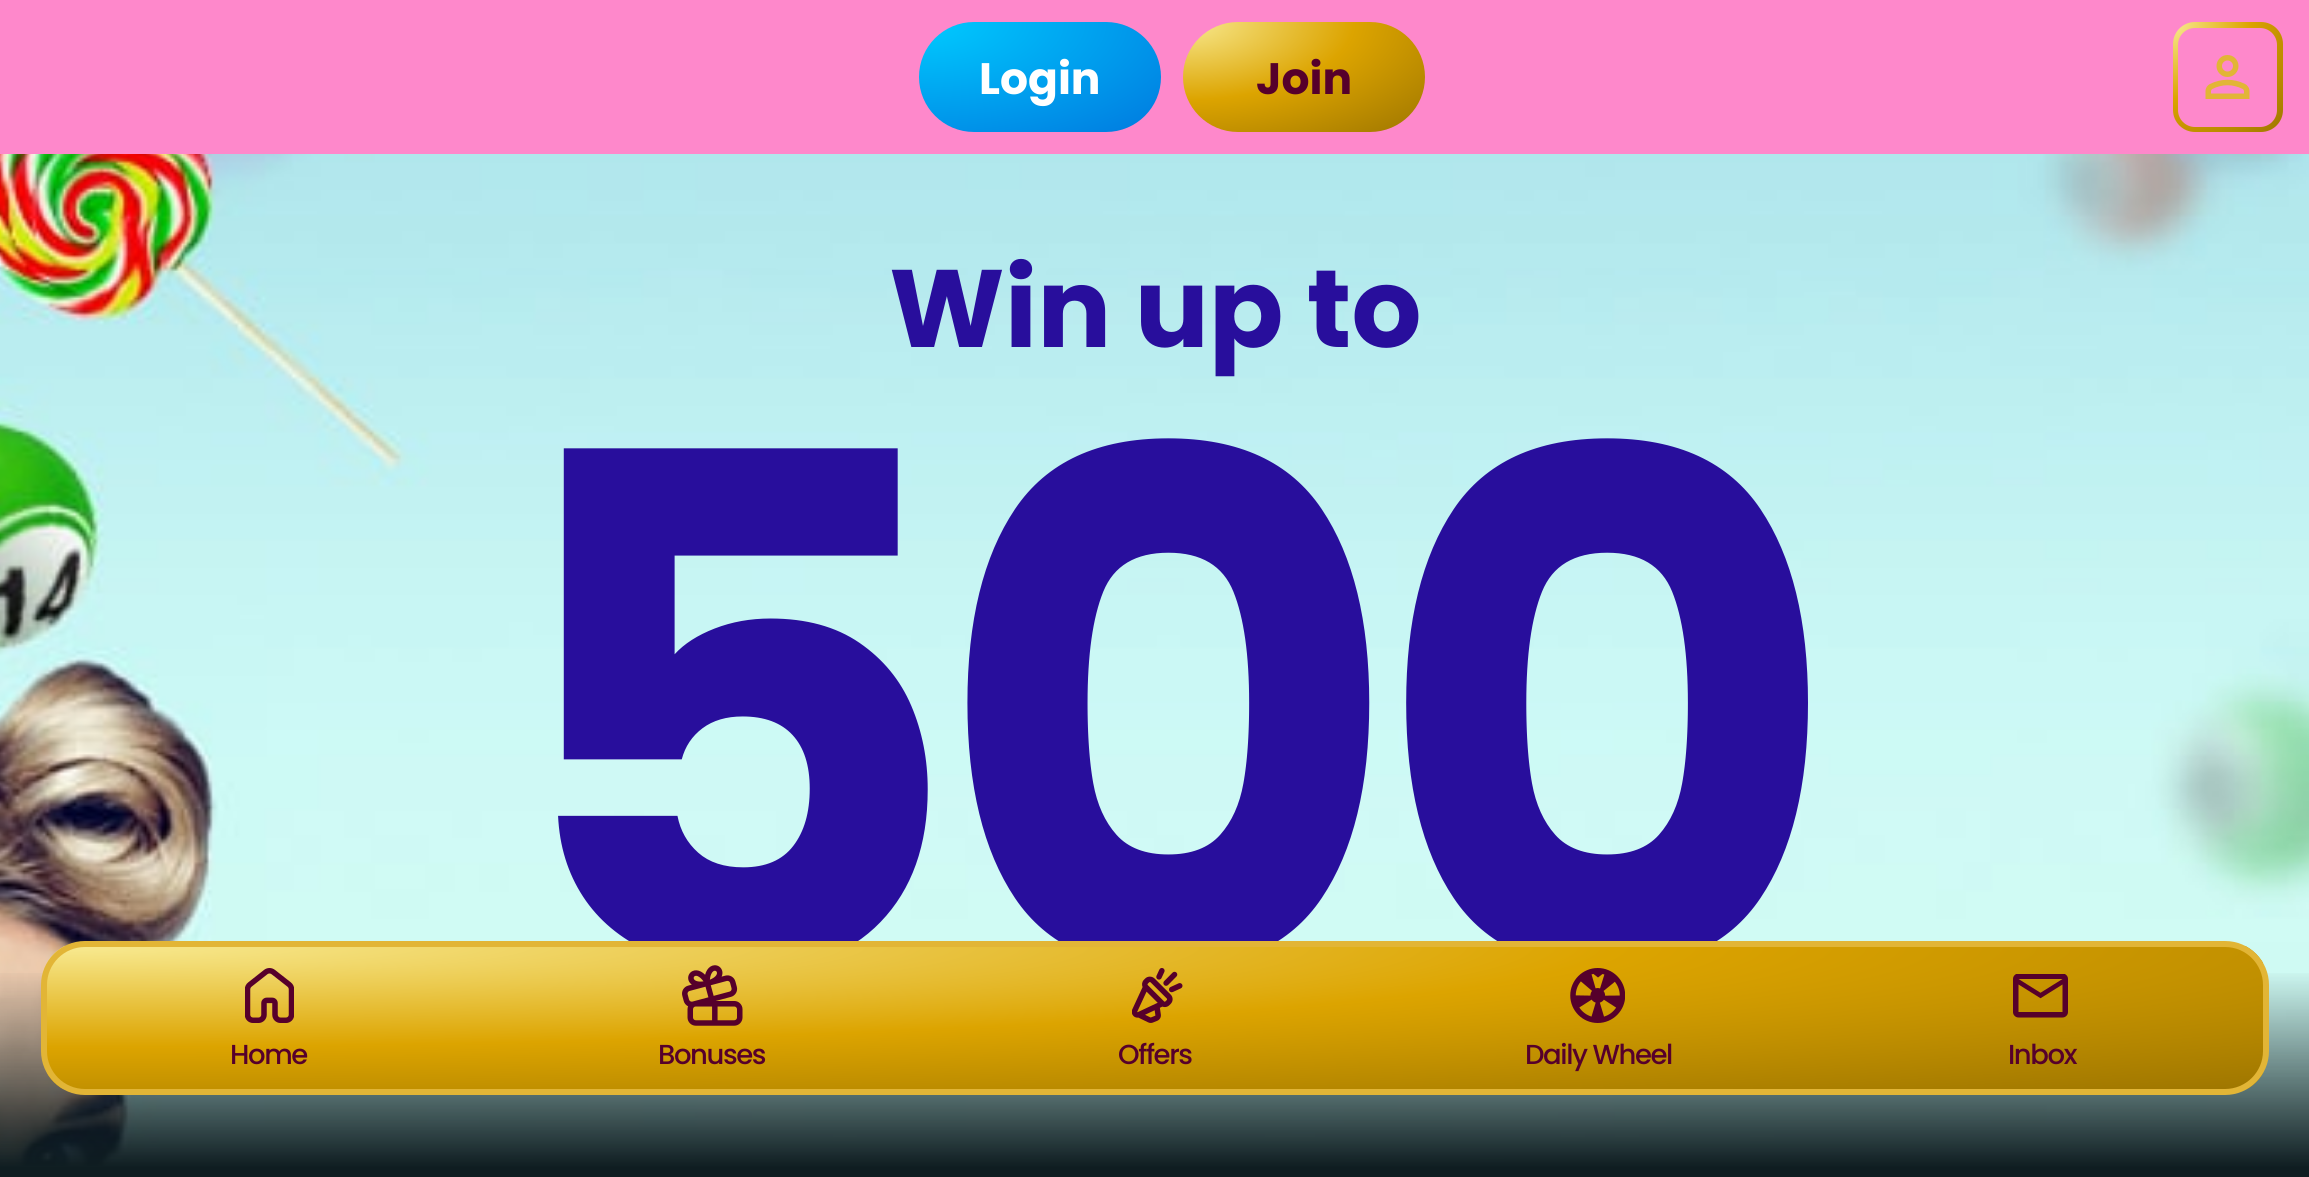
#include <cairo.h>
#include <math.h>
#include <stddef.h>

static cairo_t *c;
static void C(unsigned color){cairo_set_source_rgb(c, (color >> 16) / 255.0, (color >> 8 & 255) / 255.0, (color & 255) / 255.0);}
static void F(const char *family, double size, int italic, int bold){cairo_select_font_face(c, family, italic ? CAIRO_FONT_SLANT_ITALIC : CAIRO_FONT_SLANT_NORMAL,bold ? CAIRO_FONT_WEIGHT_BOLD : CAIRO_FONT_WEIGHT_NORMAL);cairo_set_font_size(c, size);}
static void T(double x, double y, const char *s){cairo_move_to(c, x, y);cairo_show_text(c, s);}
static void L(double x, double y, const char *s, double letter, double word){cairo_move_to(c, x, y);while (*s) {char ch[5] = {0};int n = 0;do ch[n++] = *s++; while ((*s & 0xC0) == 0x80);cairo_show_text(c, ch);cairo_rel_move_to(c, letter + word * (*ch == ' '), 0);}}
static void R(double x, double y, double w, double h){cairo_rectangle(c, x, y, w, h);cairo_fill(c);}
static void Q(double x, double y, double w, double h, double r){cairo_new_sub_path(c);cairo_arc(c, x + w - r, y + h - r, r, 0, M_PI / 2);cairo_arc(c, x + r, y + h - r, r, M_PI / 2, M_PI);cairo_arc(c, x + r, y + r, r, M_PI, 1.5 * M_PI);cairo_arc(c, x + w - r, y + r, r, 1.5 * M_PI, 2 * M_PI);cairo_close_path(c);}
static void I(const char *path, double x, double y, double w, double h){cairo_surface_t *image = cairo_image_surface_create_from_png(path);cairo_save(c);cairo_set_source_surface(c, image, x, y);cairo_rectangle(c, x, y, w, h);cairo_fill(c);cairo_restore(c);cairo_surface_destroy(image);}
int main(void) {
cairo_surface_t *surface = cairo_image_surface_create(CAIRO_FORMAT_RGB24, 2309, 1177);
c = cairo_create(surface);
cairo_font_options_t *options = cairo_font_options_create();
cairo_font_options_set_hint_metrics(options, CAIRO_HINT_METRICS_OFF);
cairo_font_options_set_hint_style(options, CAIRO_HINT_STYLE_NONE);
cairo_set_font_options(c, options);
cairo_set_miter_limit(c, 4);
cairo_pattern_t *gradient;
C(0xffffff);
cairo_paint(c);
C(0xfe88cb);
R(0,0,2309,154);
gradient = cairo_pattern_create_radial(0,0,0,0,0,1);
cairo_pattern_set_matrix(gradient, &(cairo_matrix_t){1.0 / 342, 0, 0, 1.0 / 156, -1.0 * 919 / 342, -1.0 * 22 / 156});
cairo_pattern_add_color_stop_rgba(gradient,0,0,0.796,1,1);
cairo_pattern_add_color_stop_rgba(gradient,1,0,0.478,0.875,1);
cairo_set_source(c,gradient);
cairo_pattern_destroy(gradient);
Q(919,22,242,110,55);
cairo_fill(c);
F("Poppins",44,0,1);
C(0xffffff);
T(979,94,"Login");
gradient = cairo_pattern_create_radial(0,0,0,0,0,1);
cairo_pattern_set_matrix(gradient, &(cairo_matrix_t){1.0 / 342, 0, 0, 1.0 / 156, -1.0 * 1183 / 342, -1.0 * 22 / 156});
cairo_pattern_add_color_stop_rgba(gradient,0,0.973,0.918,0.569,1);
cairo_pattern_add_color_stop_rgba(gradient,.5,0.863,0.643,0,1);
cairo_pattern_add_color_stop_rgba(gradient,.99,0.627,0.467,0,1);
cairo_set_source(c,gradient);
cairo_pattern_destroy(gradient);
Q(1183,22,242,110,55);
cairo_fill(c);
C(0x56002b);
T(1256,94,"Join");
gradient = cairo_pattern_create_radial(2173,22,0,2173,22,308);
cairo_pattern_add_color_stop_rgba(gradient,0,0.973,0.918,0.569,1);
cairo_pattern_add_color_stop_rgba(gradient,.25,0.863,0.643,0,1);
cairo_pattern_add_color_stop_rgba(gradient,.5,0.627,0.467,0,1);
cairo_pattern_add_color_stop_rgba(gradient,.5,0.973,0.918,0.569,1);
cairo_pattern_add_color_stop_rgba(gradient,.75,0.863,0.643,0,1);
cairo_pattern_add_color_stop_rgba(gradient,1,0.627,0.467,0,1);
cairo_set_source(c,gradient);
cairo_pattern_destroy(gradient);
Q(2173,22,110,110,22);
cairo_fill(c);
C(0xfe88cb);
Q(2178,28,99,99,17);
cairo_fill(c);
I("1.png",2205,55,45,44);
I("2.png",0,154,2309,1012);
F("Poppins",110,0,1);
C(0x280e9c);
T(889,347,"Win up to");
F("Poppins",715,0,1);
L(498,971,"500",-27.5,0);
gradient = cairo_pattern_create_linear(1155,940,1155,1177);
cairo_pattern_add_color_stop_rgba(gradient,.12,0.059,0.114,0.129,0);
cairo_pattern_add_color_stop_rgba(gradient,.96,0.059,0.114,0.129,1);
cairo_set_source(c,gradient);
cairo_pattern_destroy(gradient);
R(0,973,2309,204);
cairo_save(c);
Q(41,941,2228,154,44);
cairo_clip(c);
gradient = cairo_pattern_create_radial(0,0,0,0,0,1);
cairo_pattern_set_matrix(gradient, &(cairo_matrix_t){1.0 / 3135, 0, 0, 1.0 / 202, -1.0 * 47 / 3135, -1.0 * 946 / 202});
cairo_pattern_add_color_stop_rgba(gradient,0,0.973,0.918,0.569,1);
cairo_pattern_add_color_stop_rgba(gradient,.5,0.863,0.643,0,1);
cairo_pattern_add_color_stop_rgba(gradient,.99,0.627,0.467,0,1);
cairo_set_source(c,gradient);
cairo_pattern_destroy(gradient);
R(47,946,2216,143);
cairo_restore(c);
Q(44,944,2222,148,41);
C(0xe2b536);
cairo_set_line_width(c,6);
cairo_stroke(c);
I("3.png",245,968,49,55);
F("Poppins Medium",27.5,0,0);
C(0x56002b);
L(230,1064,"Home",-1.4,0);
I("4.png",682,965,61,61);
L(658,1064,"Bonuses",-1.4,0);
I("5.png",1132,968,51,55);
L(1118,1064,"Offers",-1.4,0);
I("6.png",1570,968,55,55);
L(1525,1064,"Daily Wheel",-1.4,0);
I("7.png",2013,974,55,44);
L(2008,1064,"Inbox",-1.4,0);
cairo_surface_write_to_png(surface, "o.png");
cairo_font_options_destroy(options);
cairo_destroy(c);
cairo_surface_destroy(surface);
return 0;
}
